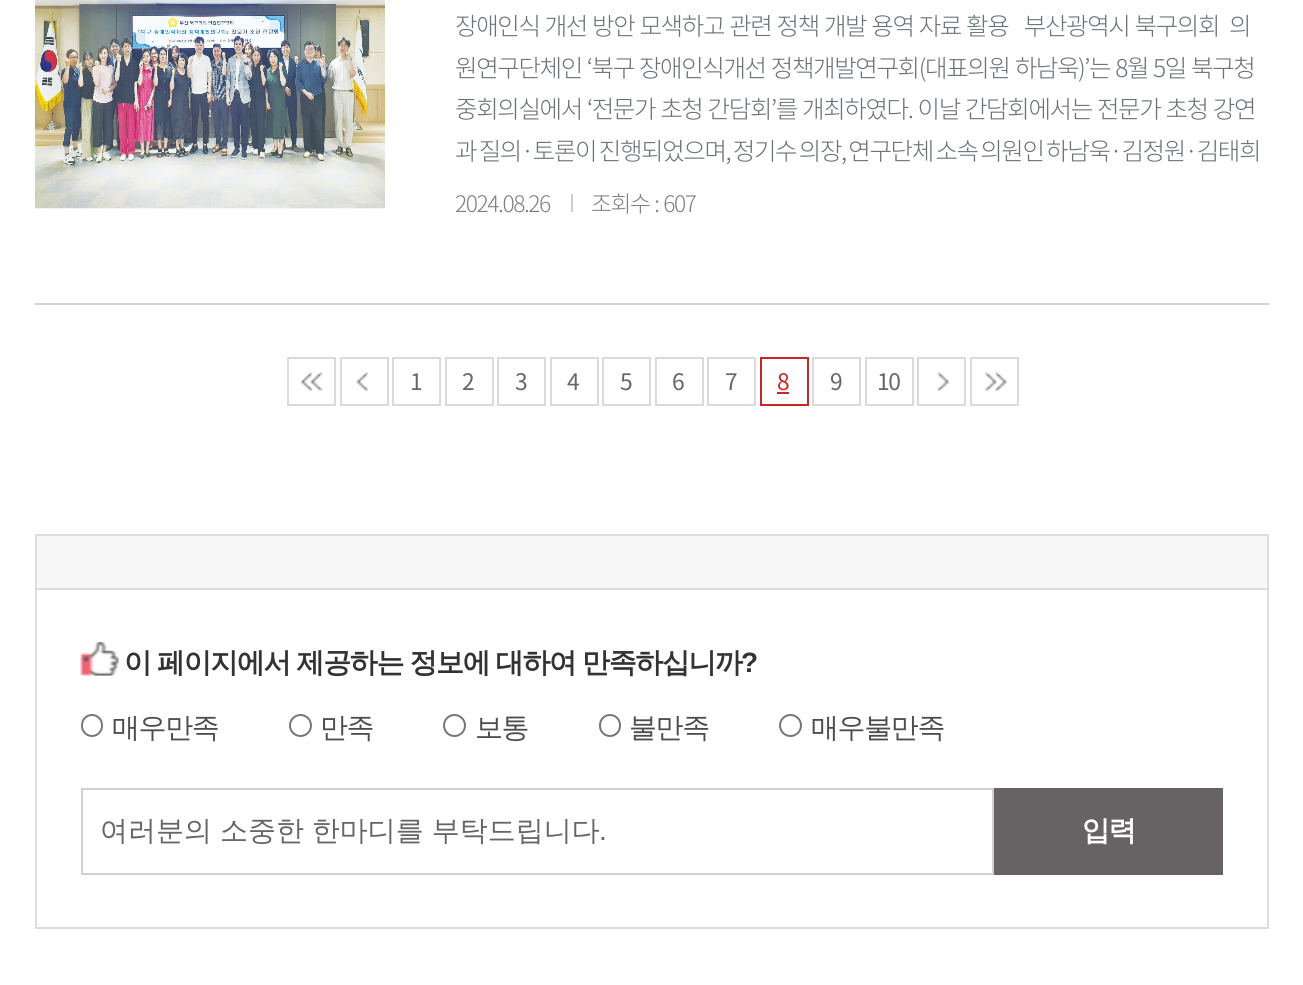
#include <cairo.h>
#include <math.h>
#include <stddef.h>

static cairo_t *c;
static void C(unsigned color){cairo_set_source_rgb(c, (color >> 16) / 255.0, (color >> 8 & 255) / 255.0, (color & 255) / 255.0);}
static void F(const char *family, double size, int italic, int bold){cairo_select_font_face(c, family, italic ? CAIRO_FONT_SLANT_ITALIC : CAIRO_FONT_SLANT_NORMAL,bold ? CAIRO_FONT_WEIGHT_BOLD : CAIRO_FONT_WEIGHT_NORMAL);cairo_set_font_size(c, size);}
static void T(double x, double y, const char *s){cairo_move_to(c, x, y);cairo_show_text(c, s);}
static void L(double x, double y, const char *s, double letter, double word){cairo_move_to(c, x, y);while (*s) {char ch[5] = {0};int n = 0;do ch[n++] = *s++; while ((*s & 0xC0) == 0x80);cairo_show_text(c, ch);cairo_rel_move_to(c, letter + word * (*ch == ' '), 0);}}
static void R(double x, double y, double w, double h){cairo_rectangle(c, x, y, w, h);cairo_fill(c);}
static void Q(double x, double y, double w, double h, double r){cairo_new_sub_path(c);cairo_arc(c, x + w - r, y + h - r, r, 0, M_PI / 2);cairo_arc(c, x + r, y + h - r, r, M_PI / 2, M_PI);cairo_arc(c, x + r, y + r, r, M_PI, 1.5 * M_PI);cairo_arc(c, x + w - r, y + r, r, 1.5 * M_PI, 2 * M_PI);cairo_close_path(c);}
static void I(const char *path, double x, double y, double w, double h){cairo_surface_t *image = cairo_image_surface_create_from_png(path);cairo_save(c);cairo_set_source_surface(c, image, x, y);cairo_rectangle(c, x, y, w, h);cairo_fill(c);cairo_restore(c);cairo_surface_destroy(image);}
int main(void) {
cairo_surface_t *surface = cairo_image_surface_create(CAIRO_FORMAT_RGB24, 1303, 985);
c = cairo_create(surface);
cairo_font_options_t *options = cairo_font_options_create();
cairo_font_options_set_hint_metrics(options, CAIRO_HINT_METRICS_OFF);
cairo_font_options_set_hint_style(options, CAIRO_HINT_STYLE_NONE);
cairo_set_font_options(c, options);
cairo_set_miter_limit(c, 4);
C(0xffffff);
cairo_paint(c);
C(0xcfd4d9);
R(35,303,1234,2);
I("1.png",35,0,350,209);
F("Noto Sans KR Light",24.5,0,0);
C(0x6b7177);
L(455,35,"장애인식 개선 방안 모색하고 관련 정책 개발 용역 자료 활용   부산광역시 북구의회",-1.4,1.1);
L(1229,35,"의",-1.4,1.1);
L(455,77,"원연구단체인 ‘북구 장애인식개선 정책개발연구회(대표의원 하남욱)’는 8월 5일 북구청",-1.4,1);
L(455,118,"중회의실에서 ‘전문가 초청 간담회’를 개최하였다. 이날 간담회에서는 전문가 초청 강연",-1.4,1.1);
L(455,160,"과 질의·토론이 진행되었으며, 정기수 의장, 연구단체 소속 의원인 하남욱·김정원·김태희",-1.4,-1.5);
F("Noto Sans KR Light",22.75,0,0);
C(0x7f7f7f);
L(455,212,"2024.08.26",-1.4,0);
C(0xcbcfd4);
R(571,194,2,18);
C(0x7f7f7f);
L(591,212,"조회수 : 607",-1.4,1);
cairo_rectangle(c,288,358,47,47);
C(0xdadada);
cairo_stroke(c);
I("2.png",300,372,23,19);
cairo_rectangle(c,341,358,47,47);
cairo_stroke(c);
I("3.png",356,372,12,19);
cairo_rectangle(c,393,358,47,47);
cairo_stroke(c);
F("Noto Sans KR",22.75,0,0);
C(0x666666);
L(410,390,"1",-1.4,0);
cairo_rectangle(c,446,358,47,47);
C(0xdadada);
cairo_stroke(c);
C(0x666666);
L(462,390,"2",-1.4,0);
cairo_rectangle(c,498,358,47,47);
C(0xdadada);
cairo_stroke(c);
C(0x666666);
L(515,390,"3",-1.4,0);
cairo_rectangle(c,551,358,47,47);
C(0xdadada);
cairo_stroke(c);
C(0x666666);
L(567,390,"4",-1.4,0);
cairo_rectangle(c,603,358,47,47);
C(0xdadada);
cairo_stroke(c);
C(0x666666);
L(620,390,"5",-1.4,0);
cairo_rectangle(c,656,358,47,47);
C(0xdadada);
cairo_stroke(c);
C(0x666666);
L(672,390,"6",-1.4,0);
cairo_rectangle(c,708,358,47,47);
C(0xdadada);
cairo_stroke(c);
C(0x666666);
L(725,390,"7",-1.4,0);
cairo_rectangle(c,761,358,47,47);
C(0xc62828);
cairo_stroke(c);
L(777,390,"8",-1.4,0);
R(777,392,12,2);
cairo_rectangle(c,813,358,47,47);
C(0xdadada);
cairo_stroke(c);
C(0x666666);
L(830,390,"9",-1.4,0);
cairo_rectangle(c,866,358,47,47);
C(0xdadada);
cairo_stroke(c);
C(0x666666);
L(877,390,"10",-1.4,0);
cairo_rectangle(c,918,358,47,47);
C(0xdadada);
cairo_stroke(c);
I("4.png",937,372,12,19);
cairo_rectangle(c,971,358,47,47);
cairo_stroke(c);
I("5.png",984,372,23,19);
cairo_rectangle(c,36,535,1232,393);
C(0xdddddd);
cairo_stroke(c);
C(0xf7f7f7);
R(37,536,1230,52);
C(0xdddddd);
R(37,588,1230,2);
I("6.png",80,642,39,34);
F("WenQuanYi Zen Hei",28,0,1);
C(0x333333);
L(124,672,"이 페이지에서 제공하는 정보에 대하여 만족하십니까",-1.4,-.5);
F("Liberation Sans",28,0,1);
L(741,672,"?",-1.4,0);
Q(82,715,20,21,10);
C(0x767676);
cairo_stroke(c);
F("WenQuanYi Zen Hei Medium",28,0,0);
C(0x4d4d4d);
L(112,737,"매우만족",-1.4,0);
cairo_new_path(c);
cairo_arc(c,300.5,725.5,10.5,0,2 * M_PI);
C(0x767676);
cairo_stroke(c);
C(0x4d4d4d);
L(320,737,"만족",-1.4,0);
cairo_new_path(c);
cairo_arc(c,454.5,725.5,10.5,0,2 * M_PI);
C(0x767676);
cairo_stroke(c);
C(0x4d4d4d);
L(475,737,"보통",-1.4,0);
Q(600,715,20,21,10);
C(0x767676);
cairo_stroke(c);
C(0x4d4d4d);
L(629,737,"불만족",-1.4,0);
cairo_new_path(c);
cairo_arc(c,790.5,725.5,10.5,0,2 * M_PI);
C(0x767676);
cairo_stroke(c);
C(0x4d4d4d);
L(811,737,"매우불만족",-1.4,0);
cairo_rectangle(c,82,789,911,85);
C(0xd1d1d1);
cairo_stroke(c);
C(0x666666);
L(100,840,"여러분의 소중한 한마디를 부탁드립니다",0,-.5);
F("Liberation Sans",28,0,0);
T(599,840,".");
C(0x676364);
R(994,788,229,87);
F("WenQuanYi Zen Hei",28,0,1);
C(0xffffff);
L(1082,840,"입력",-1.4,0);
cairo_surface_write_to_png(surface, "o.png");
cairo_font_options_destroy(options);
cairo_destroy(c);
cairo_surface_destroy(surface);
return 0;
}
